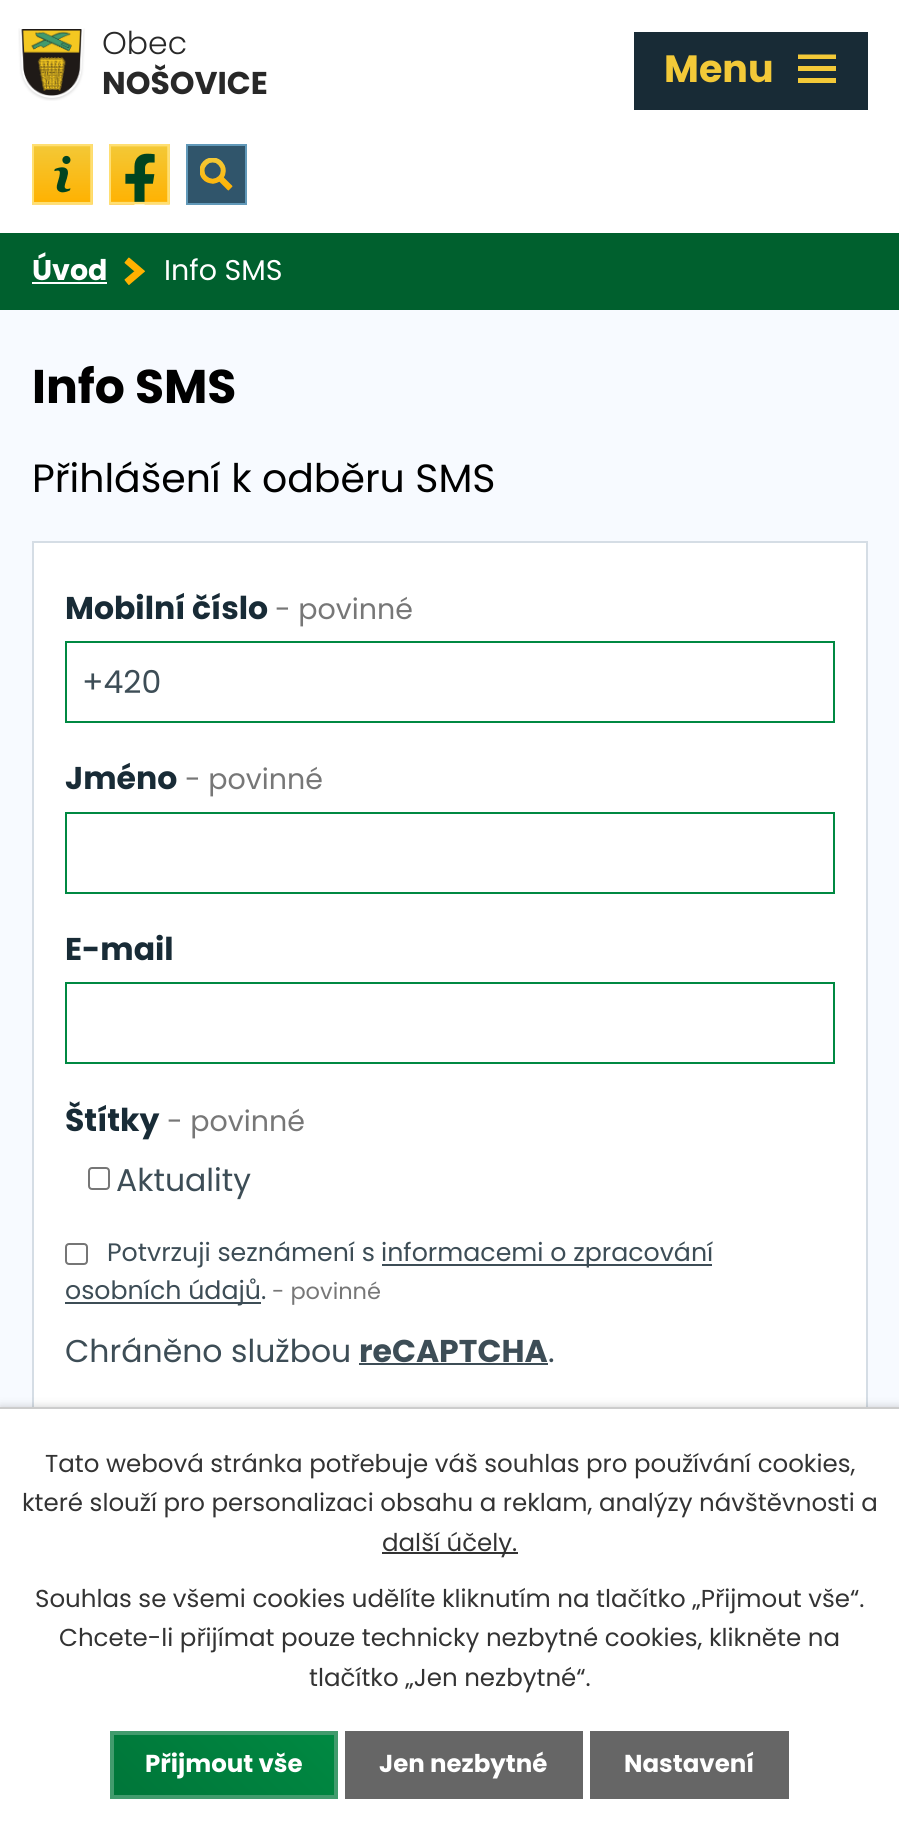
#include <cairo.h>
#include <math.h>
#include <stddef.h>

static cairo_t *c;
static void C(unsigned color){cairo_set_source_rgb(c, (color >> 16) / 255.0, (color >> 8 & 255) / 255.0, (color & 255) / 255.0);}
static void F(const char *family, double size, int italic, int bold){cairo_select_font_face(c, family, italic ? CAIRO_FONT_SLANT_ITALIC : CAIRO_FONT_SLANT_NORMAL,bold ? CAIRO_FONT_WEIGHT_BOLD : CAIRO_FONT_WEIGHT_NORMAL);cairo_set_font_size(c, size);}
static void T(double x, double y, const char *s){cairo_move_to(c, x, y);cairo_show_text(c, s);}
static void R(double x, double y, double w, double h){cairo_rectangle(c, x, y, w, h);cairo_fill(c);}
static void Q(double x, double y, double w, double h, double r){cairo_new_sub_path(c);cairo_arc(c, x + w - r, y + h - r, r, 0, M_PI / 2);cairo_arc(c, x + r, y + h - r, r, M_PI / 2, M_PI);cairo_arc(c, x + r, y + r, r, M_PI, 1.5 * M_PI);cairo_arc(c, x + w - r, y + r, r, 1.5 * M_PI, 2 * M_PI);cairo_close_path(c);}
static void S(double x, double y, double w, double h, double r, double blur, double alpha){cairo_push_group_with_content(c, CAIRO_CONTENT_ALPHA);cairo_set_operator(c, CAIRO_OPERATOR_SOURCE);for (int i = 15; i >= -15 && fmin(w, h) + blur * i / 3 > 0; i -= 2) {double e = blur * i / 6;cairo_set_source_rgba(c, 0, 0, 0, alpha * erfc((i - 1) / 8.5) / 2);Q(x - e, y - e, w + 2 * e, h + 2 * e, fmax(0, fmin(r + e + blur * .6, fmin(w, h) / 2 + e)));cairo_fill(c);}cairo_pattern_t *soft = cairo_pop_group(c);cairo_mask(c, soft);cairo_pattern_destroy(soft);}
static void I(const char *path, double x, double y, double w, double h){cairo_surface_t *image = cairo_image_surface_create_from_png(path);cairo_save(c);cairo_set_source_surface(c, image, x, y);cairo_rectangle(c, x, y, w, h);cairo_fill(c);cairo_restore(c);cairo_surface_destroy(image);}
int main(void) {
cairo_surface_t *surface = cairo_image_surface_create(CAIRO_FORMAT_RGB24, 899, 1831);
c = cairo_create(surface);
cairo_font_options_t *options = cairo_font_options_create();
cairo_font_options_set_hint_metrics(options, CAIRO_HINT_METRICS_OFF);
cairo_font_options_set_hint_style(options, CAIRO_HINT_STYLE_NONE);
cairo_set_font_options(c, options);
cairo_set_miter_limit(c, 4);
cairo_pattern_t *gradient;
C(0xf7faff);
cairo_paint(c);
C(0xffffff);
R(0,0,899,233);
I("1.png",18,28,67,73);
F("Poppins Light",31.5,0,0);
C(0x282828);
T(102,54,"Obec");
F("Poppins",31.5,0,1);
T(102,94,"NOŠOVICE");
I("2.png",32,144,61,61);
I("3.png",109,144,61,61);
C(0x30556b);
cairo_rectangle(c,187,145,59,59);
cairo_fill_preserve(c);
C(0x6199b9);
cairo_stroke(c);
I("4.png",200,158,33,33);
C(0x182b36);
R(634,32,234,78);
F("Poppins",38,0,1);
C(0xf3c938);
T(664,82,"Menu");
cairo_new_path(c);
cairo_move_to(c,798,83);
cairo_line_to(c,798,78);
cairo_line_to(c,836,78);
cairo_line_to(c,836,83);
cairo_close_path(c);
cairo_move_to(c,798,54.5);
cairo_line_to(c,836,54.5);
cairo_line_to(c,836,59);
cairo_line_to(c,798,59);
cairo_close_path(c);
cairo_move_to(c,798,71);
cairo_line_to(c,798,66);
cairo_line_to(c,836,66);
cairo_line_to(c,836,71);
cairo_close_path(c);
cairo_fill(c);
C(0x00602e);
R(0,233,899,77);
F("Poppins",28.5,0,1);
C(0xffffff);
T(32,280,"Úvod");
R(32,282,75,2);
I("5.png",124,257,21,28);
F("Poppins",28.5,0,0);
T(164,280,"Info SMS");
F("Poppins",47.25,0,1);
C(0x000000);
T(32,403,"Info SMS");
F("Poppins",39.4,0,0);
T(32,492,"Přihlášení k odběru SMS");
C(0xffffff);
R(34,543,832,864);
cairo_rectangle(c,33,542,834,1092);
C(0xd5dde5);
cairo_stroke(c);
F("Poppins",31.5,0,1);
C(0x182b36);
T(65,619,"Mobilní číslo");
F("Poppins",28.5,0,0);
C(0x777777);
T(275,619,"- povinné");
cairo_rectangle(c,66,642,768,80);
C(0x008942);
cairo_stroke(c);
F("Poppins",31.5,0,0);
C(0x3d4d56);
T(82,693,"+420");
F("Poppins",31.5,0,1);
C(0x182b36);
T(65,789,"Jméno");
F("Poppins",28.5,0,0);
C(0x777777);
T(185,789,"- povinné");
cairo_rectangle(c,66,813,768,80);
C(0x008942);
cairo_stroke(c);
F("Poppins",31.5,0,1);
C(0x182b36);
T(65,960,"E-mail");
cairo_rectangle(c,66,983,768,80);
C(0x008942);
cairo_stroke(c);
C(0x182b36);
T(65,1131,"Štítky");
F("Poppins",28.5,0,0);
C(0x777777);
T(167,1131,"- povinné");
Q(89,1168,20,21,3);
C(0x767676);
cairo_stroke(c);
F("Poppins",31.5,0,0);
C(0x3d4d56);
T(116,1191,"Aktuality");
Q(66,1244,21,20,3);
C(0x767676);
cairo_stroke(c);
F("Poppins",25.25,0,0);
C(0x3d4d56);
T(107,1261,"Potvrzuji seznámení s");
R(382,1264,330,2);
T(381,1261,"informacemi o zpracování");
R(65,1302,196,2);
T(65,1299,"osobních údajů.");
F("Poppins",22.5,0,0);
C(0x777777);
T(272,1299,"- povinné");
F("Poppins",31.5,0,0);
C(0x3d4d56);
T(65,1362,"Chráněno službou");
F("Poppins",31.5,0,1);
T(359,1362,"reCAPTCHA");
R(359,1363,189,2);
F("Poppins",31.5,0,0);
T(548,1362,".");
C(0x000000);
S(0,1407,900,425,0,4.5,.2);
C(0xffffff);
R(0,1409,899,422);
C(0xcccccc);
R(0,1407,899,2);
F("Poppins",24.5,0,0);
C(0x333333);
T(45,1472,"Tato webová stránka potřebuje váš souhlas pro používání cookies,");
T(22,1511,"které slouží pro personalizaci obsahu a reklam, analýzy návštěvnosti a");
R(382,1552,136,2);
T(382,1551,"další účely.");
T(35,1607,"Souhlas se všemi cookies udělíte kliknutím na tlačítko „Přijmout vše“.");
T(59,1646,"Chcete-li přijímat pouze technicky nezbytné cookies, klikněte na");
T(309,1686,"tlačítko „Jen nezbytné“.");
gradient = cairo_pattern_create_linear(154,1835,294,1694);
cairo_pattern_add_color_stop_rgba(gradient,0,0,0.463,0.224,1);
cairo_pattern_add_color_stop_rgba(gradient,1,0,0.537,0.259,1);
cairo_set_source(c,gradient);
cairo_pattern_destroy(gradient);
R(114,1735,220,60);
cairo_rectangle(c,112,1733,224,64);
C(0x429b6d);
cairo_set_line_width(c,4);
cairo_stroke(c);
F("Poppins",24.5,0,1);
C(0xffffff);
T(145,1772,"Přijmout vše");
C(0x666666);
R(345,1731,238,68);
C(0xffffff);
T(379,1772,"Jen nezbytné");
C(0x666666);
R(590,1731,199,68);
C(0xffffff);
T(624,1772,"Nastavení");
cairo_surface_write_to_png(surface, "o.png");
cairo_font_options_destroy(options);
cairo_destroy(c);
cairo_surface_destroy(surface);
return 0;
}
